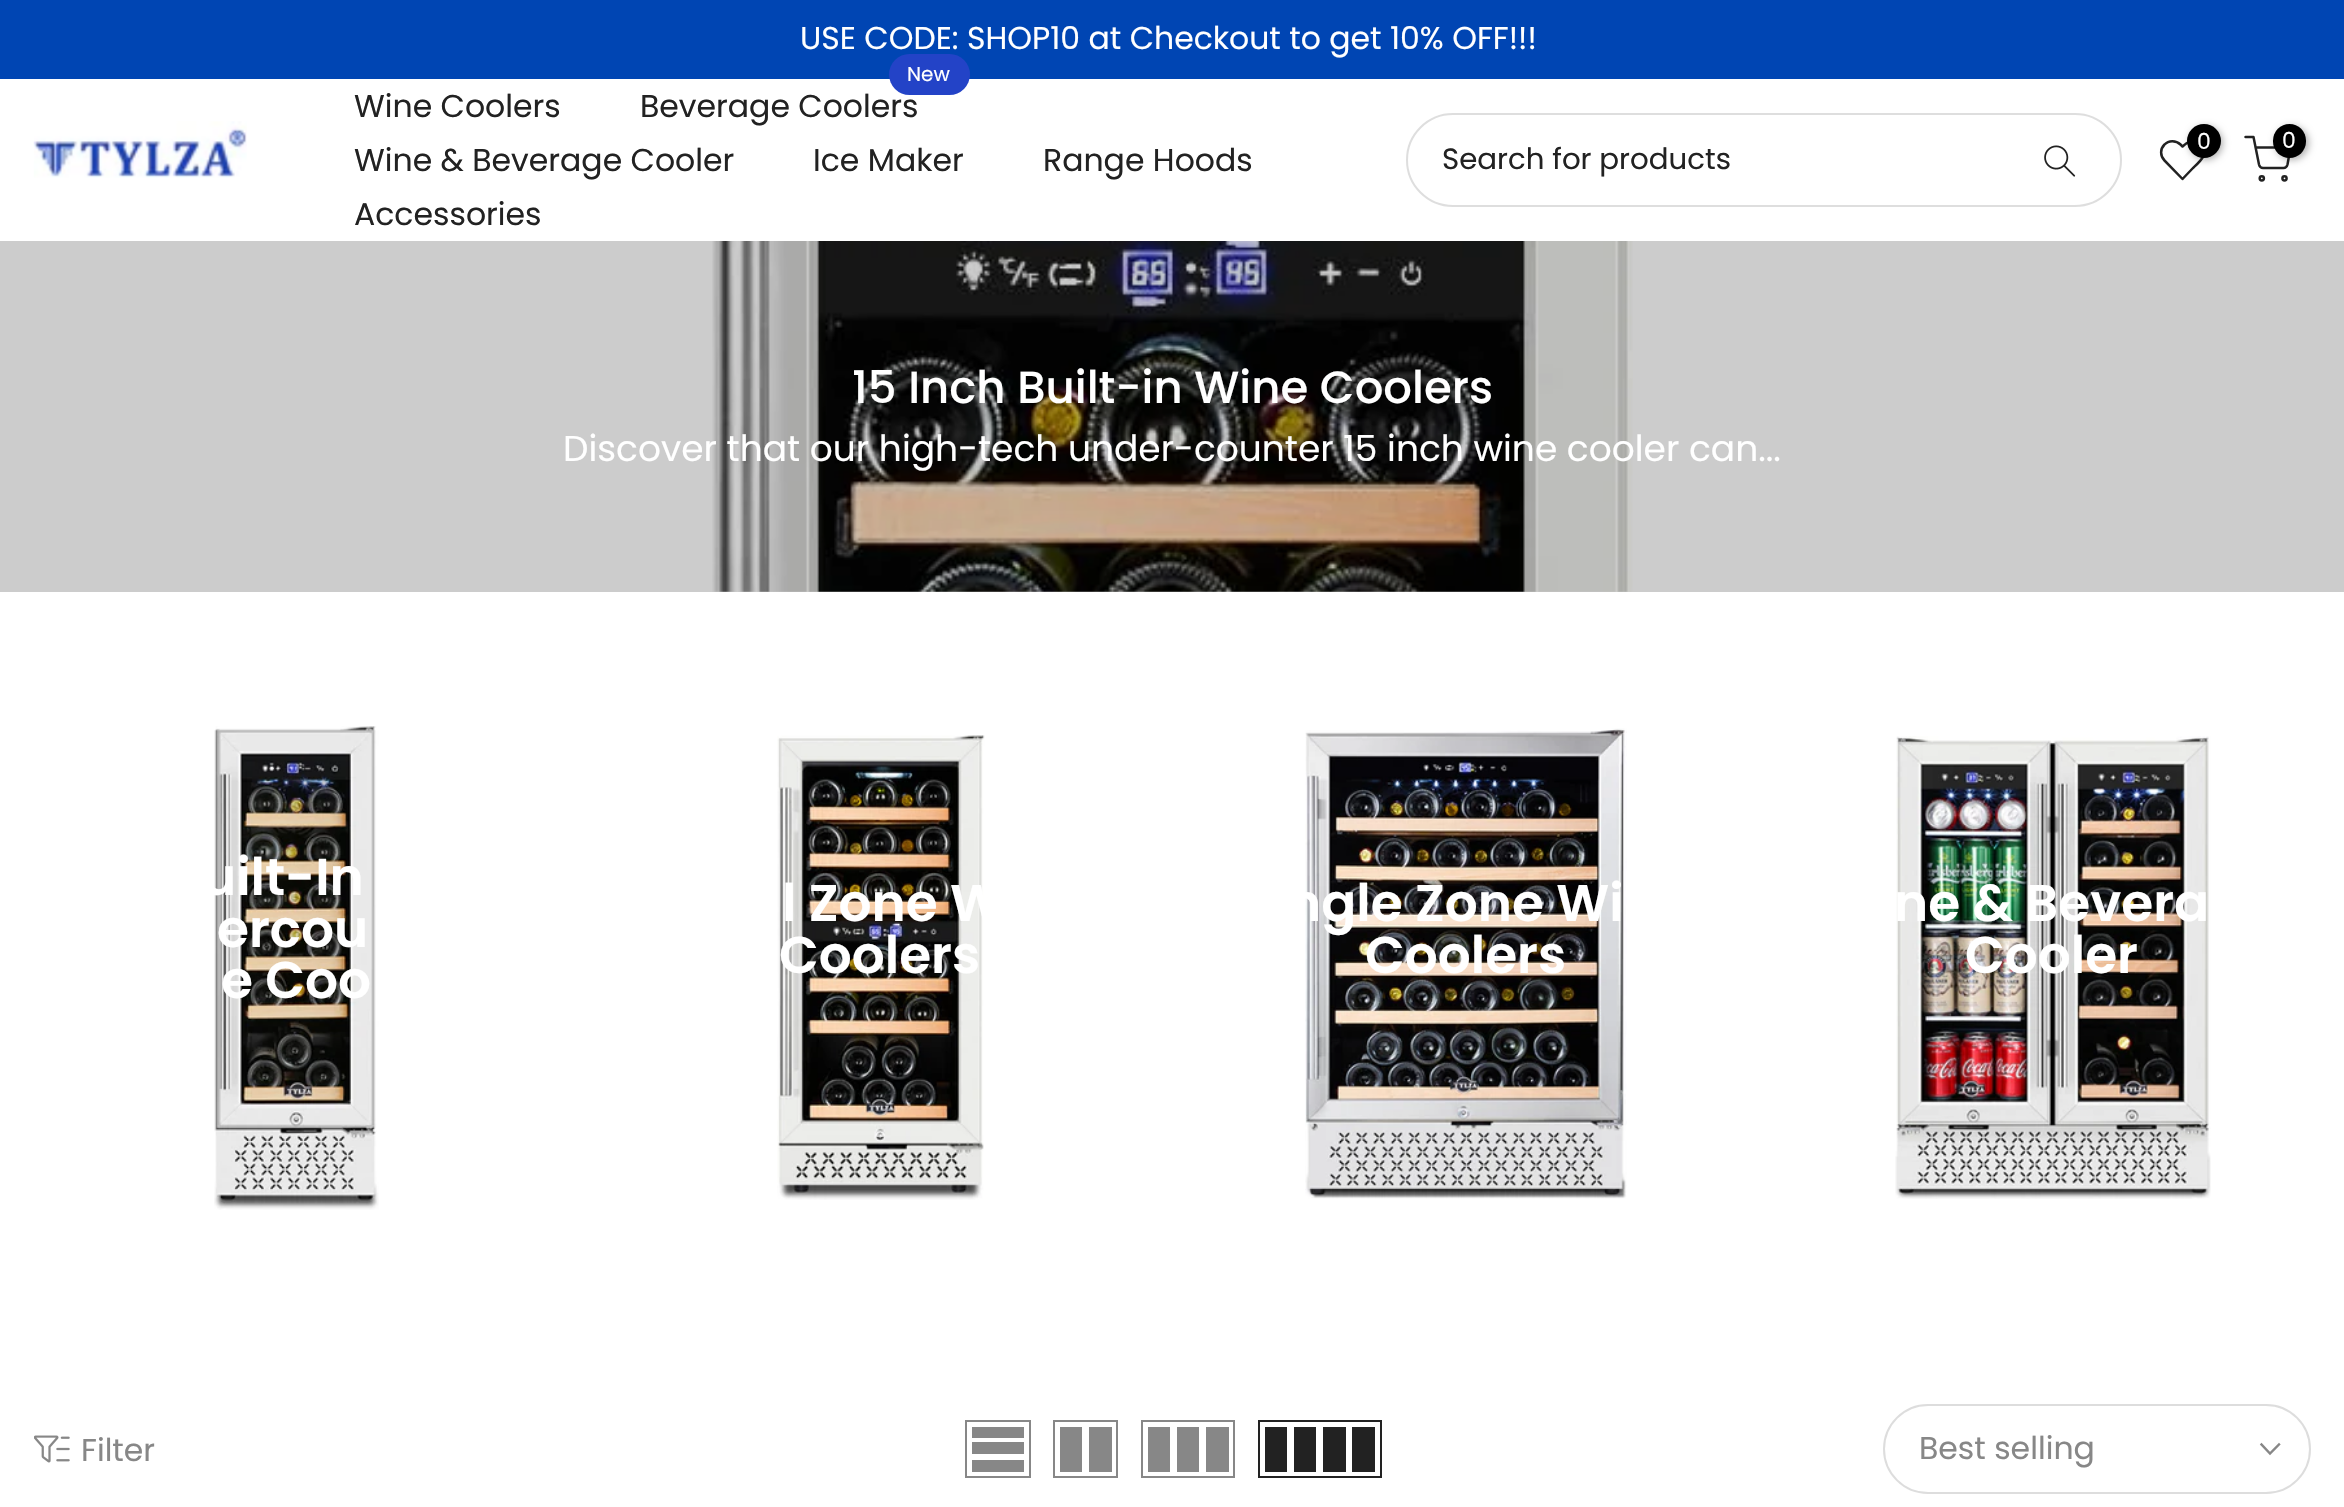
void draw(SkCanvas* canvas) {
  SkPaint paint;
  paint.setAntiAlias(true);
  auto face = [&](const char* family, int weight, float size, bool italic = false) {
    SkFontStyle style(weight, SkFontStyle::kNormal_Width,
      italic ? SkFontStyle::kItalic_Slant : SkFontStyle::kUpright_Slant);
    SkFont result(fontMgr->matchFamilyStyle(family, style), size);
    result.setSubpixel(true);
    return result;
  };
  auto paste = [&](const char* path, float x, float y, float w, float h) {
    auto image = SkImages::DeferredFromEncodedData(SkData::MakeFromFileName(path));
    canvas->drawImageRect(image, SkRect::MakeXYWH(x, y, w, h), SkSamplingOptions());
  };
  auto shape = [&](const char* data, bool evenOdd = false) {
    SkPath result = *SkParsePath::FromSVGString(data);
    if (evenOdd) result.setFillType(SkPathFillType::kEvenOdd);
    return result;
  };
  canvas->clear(0xffffffff);
  paint.setColor(0xffcccccc);
  canvas->drawRect(SkRect::MakeXYWH(0, 241, 2344, 351), paint);
  paint.setColor(0xff0045b3);
  canvas->drawRect(SkRect::MakeXYWH(0, 0, 2344, 79), paint);
  paste("img/1.png", 33, 121, 214, 57);
  paint.setStroke(true);
  paint.setStrokeWidth(2.5f);
  paint.setStrokeCap(SkPaint::kRound_Cap);
  paint.setStrokeJoin(SkPaint::kRound_Join);
  paint.setColor(0xff222222);
  canvas->drawPath(shape("M2200.5 144.5C2194.5 138.5 2187.5 141.5 2182.5 146.5L2180.5 144.5C2176 140 2168.5 140 2164.5 144.5C2160 149 2160 156 2164.5 160.5L2182.5 179L2193 168C2199.5 162 2210 153.5 2200.5 144.5Z"), paint);
  paint.setStroke(false);
  paint.setColor(0x4d000000);
  paint.setMaskFilter(SkMaskFilter::MakeBlur(kNormal_SkBlurStyle, 3.5f));
  canvas->drawRoundRect(SkRect::MakeXYWH(2189, 126, 34, 34), 17, 17, paint);
  paint.setMaskFilter(nullptr);
  paint.setColor(0xff000000);
  canvas->drawCircle(2204, 141, 17, paint);
  paint.setStroke(true);
  paint.setColor(0xff222222);
  canvas->drawPath(shape("M2245.5 137H2253.5L2259 164.5C2259.5 166.5 2261 168 2263 168H2283.5C2285.5 168 2287 166.5 2287.5 164.5L2290.5 147.5H2255.5"), paint);
  paint.setStroke(false);
  paint.setColor(0x4d000000);
  paint.setMaskFilter(SkMaskFilter::MakeBlur(kNormal_SkBlurStyle, 3.5f));
  canvas->drawRoundRect(SkRect::MakeXYWH(2275, 126, 34, 34), 17, 17, paint);
  paint.setMaskFilter(nullptr);
  paint.setColor(0xff000000);
  canvas->drawRoundRect(SkRect::MakeXYWH(2273, 124, 33, 34), 16.5f, 16.5f, paint);
  paint.setStroke(true);
  paint.setStrokeCap(SkPaint::kButt_Cap);
  paint.setStrokeJoin(SkPaint::kMiter_Join);
  paint.setColor(0xff222222);
  canvas->drawCircle(2261.8f, 178.3f, 2.1f, paint);
  canvas->drawCircle(2284.5f, 178.3f, 2.1f, paint);
  paint.setStrokeWidth(2);
  paint.setColor(0xffdedede);
  canvas->drawRoundRect(SkRect::MakeXYWH(1407, 114, 714, 92), 46, 46, paint);
  paste("img/2.png", 2044, 145, 32, 32);
  paste("img/3.png", 712, 241, 921, 351);
  paste("img/4.png", 214, 726, 165, 484);
  paste("img/5.png", 777, 735, 208, 465);
  paste("img/6.png", 1305, 728, 322, 471);
  paste("img/7.png", 1895, 736, 316, 463);
  paste("img/8.png", 34, 1435, 36, 28);
  paint.setColor(0xff878787);
  canvas->drawRect(SkRect::MakeXYWH(966, 1421, 64, 56), paint);
  paint.setStroke(false);
  {
    const struct { float x, y, w, h; SkColor color; } items[] = {
      {972, 1460, 52, 12, 0xff878787},
      {972, 1442, 52, 12, 0xff878787},
      {972, 1427, 52, 11, 0xff878787},
    };
    for (auto [x, y, w, h, color] : items) {
      paint.setColor(color);
      canvas->drawRect(SkRect::MakeXYWH(x, y, w, h), paint);
    }
  }
  paint.setStroke(true);
  canvas->drawRect(SkRect::MakeXYWH(1054, 1421, 63, 56), paint);
  paint.setStroke(false);
  canvas->drawRect(SkRect::MakeXYWH(1089, 1427, 23, 45), paint);
  canvas->drawRect(SkRect::MakeXYWH(1060, 1427, 22, 45), paint);
  paint.setStroke(true);
  canvas->drawRect(SkRect::MakeXYWH(1142, 1421, 92, 56), paint);
  paint.setStroke(false);
  {
    const struct { float x, y, w, h; SkColor color; } items[] = {
      {1206, 1427, 23, 45, 0xff878787},
      {1177, 1427, 22, 45, 0xff878787},
      {1148, 1427, 22, 45, 0xff878787},
    };
    for (auto [x, y, w, h, color] : items) {
      paint.setColor(color);
      canvas->drawRect(SkRect::MakeXYWH(x, y, w, h), paint);
    }
  }
  paint.setStroke(true);
  paint.setColor(0xff222222);
  canvas->drawRect(SkRect::MakeXYWH(1259, 1421, 122, 56), paint);
  paint.setStroke(false);
  {
    const struct { float x, y, w, h; SkColor color; } items[] = {
      {1352, 1427, 23, 45, 0xff222222},
      {1323, 1427, 23, 45, 0xff222222},
      {1294, 1427, 22, 45, 0xff222222},
      {1265, 1427, 22, 45, 0xff222222},
    };
    for (auto [x, y, w, h, color] : items) {
      paint.setColor(color);
      canvas->drawRect(SkRect::MakeXYWH(x, y, w, h), paint);
    }
  }
  paint.setStroke(true);
  paint.setColor(0xffdddddd);
  canvas->drawRoundRect(SkRect::MakeXYWH(1884, 1405, 426, 88), 44, 44, paint);
  paint.setStrokeWidth(2.4f);
  paint.setStrokeCap(SkPaint::kSquare_Cap);
  paint.setColor(0xff878787);
  canvas->drawPath(shape("M2279 1444.5L2270 1453.5L2261.5 1444.5"), paint);
  auto f0 = face("Poppins", 400, 31.5f);
  paint.setStroke(false);
  paint.setColor(0xffffffff);
  canvas->drawString("USE CODE: SHOP10 at Checkout to get 10% OFF!!!", 800, 49, f0, paint);
  paint.setColor(0xff222222);
  canvas->drawString("Wine Coolers", 354, 117, f0, paint);
  canvas->drawString("Beverage Coolers", 640, 117, f0, paint);
  paint.setColor(0xff2343c7);
  canvas->drawRoundRect(SkRect::MakeXYWH(889, 54, 81, 41), 20.5f, 20.5f, paint);
  auto f1 = face("Poppins", 400, 20);
  paint.setColor(0xffffffff);
  canvas->drawString("New", 907, 81, f1, paint);
  paint.setColor(0xff222222);
  {
    const struct { const char* s; float x, y; } items[] = {
      {"Wine & Beverage Cooler", 354, 171},
      {"Ice Maker", 813, 171},
      {"Range Hoods", 1043, 171},
      {"Accessories", 354, 225},
    };
    for (auto [s, x, y] : items) {
      canvas->drawString(s, x, y, f0, paint);
    }
  }
  auto f2 = face("Poppins", 400, 22);
  paint.setColor(0xffffffff);
  canvas->drawString("0", 2197, 149, f2, paint);
  canvas->drawString("0", 2282, 148, f2, paint);
  auto f3 = face("Poppins", 400, 29.25f);
  paint.setColor(0xff222222);
  canvas->drawString("Search for products", 1442, 169, f3, paint);
  auto f4 = face("Poppins", 500, 45);
  paint.setColor(0xffffffff);
  canvas->drawString("15 Inch Built-in Wine Coolers", 852, 403, f4, paint);
  auto f5 = face("Poppins", 400, 36);
  canvas->drawString("Discover that our high-tech under-counter 15 inch wine cooler can...", 563, 461, f5, paint);
  auto f6 = face("Poppins", 600, 51.75f);
  {
    const struct { const char* s; float x, y; } items[] = {
      {"uilt-In", 202, 895},
      {"ercou", 217, 947},
      {"e Coo", 221, 998},
      {"l Zone W", 782, 921},
      {"Coolers", 779, 973},
      {"ngle Zone Wi", 1287, 921},
      {"Coolers", 1365, 973},
      {"ne & Bevera", 1894, 921},
      {"Cooler", 1965, 973},
    };
    for (auto [s, x, y] : items) {
      canvas->drawString(s, x, y, f6, paint);
    }
  }
  paint.setColor(0xff878787);
  canvas->drawString("Filter", 81, 1461, f0, paint);
  canvas->drawString("Best selling", 1919, 1459, f0, paint);
}
